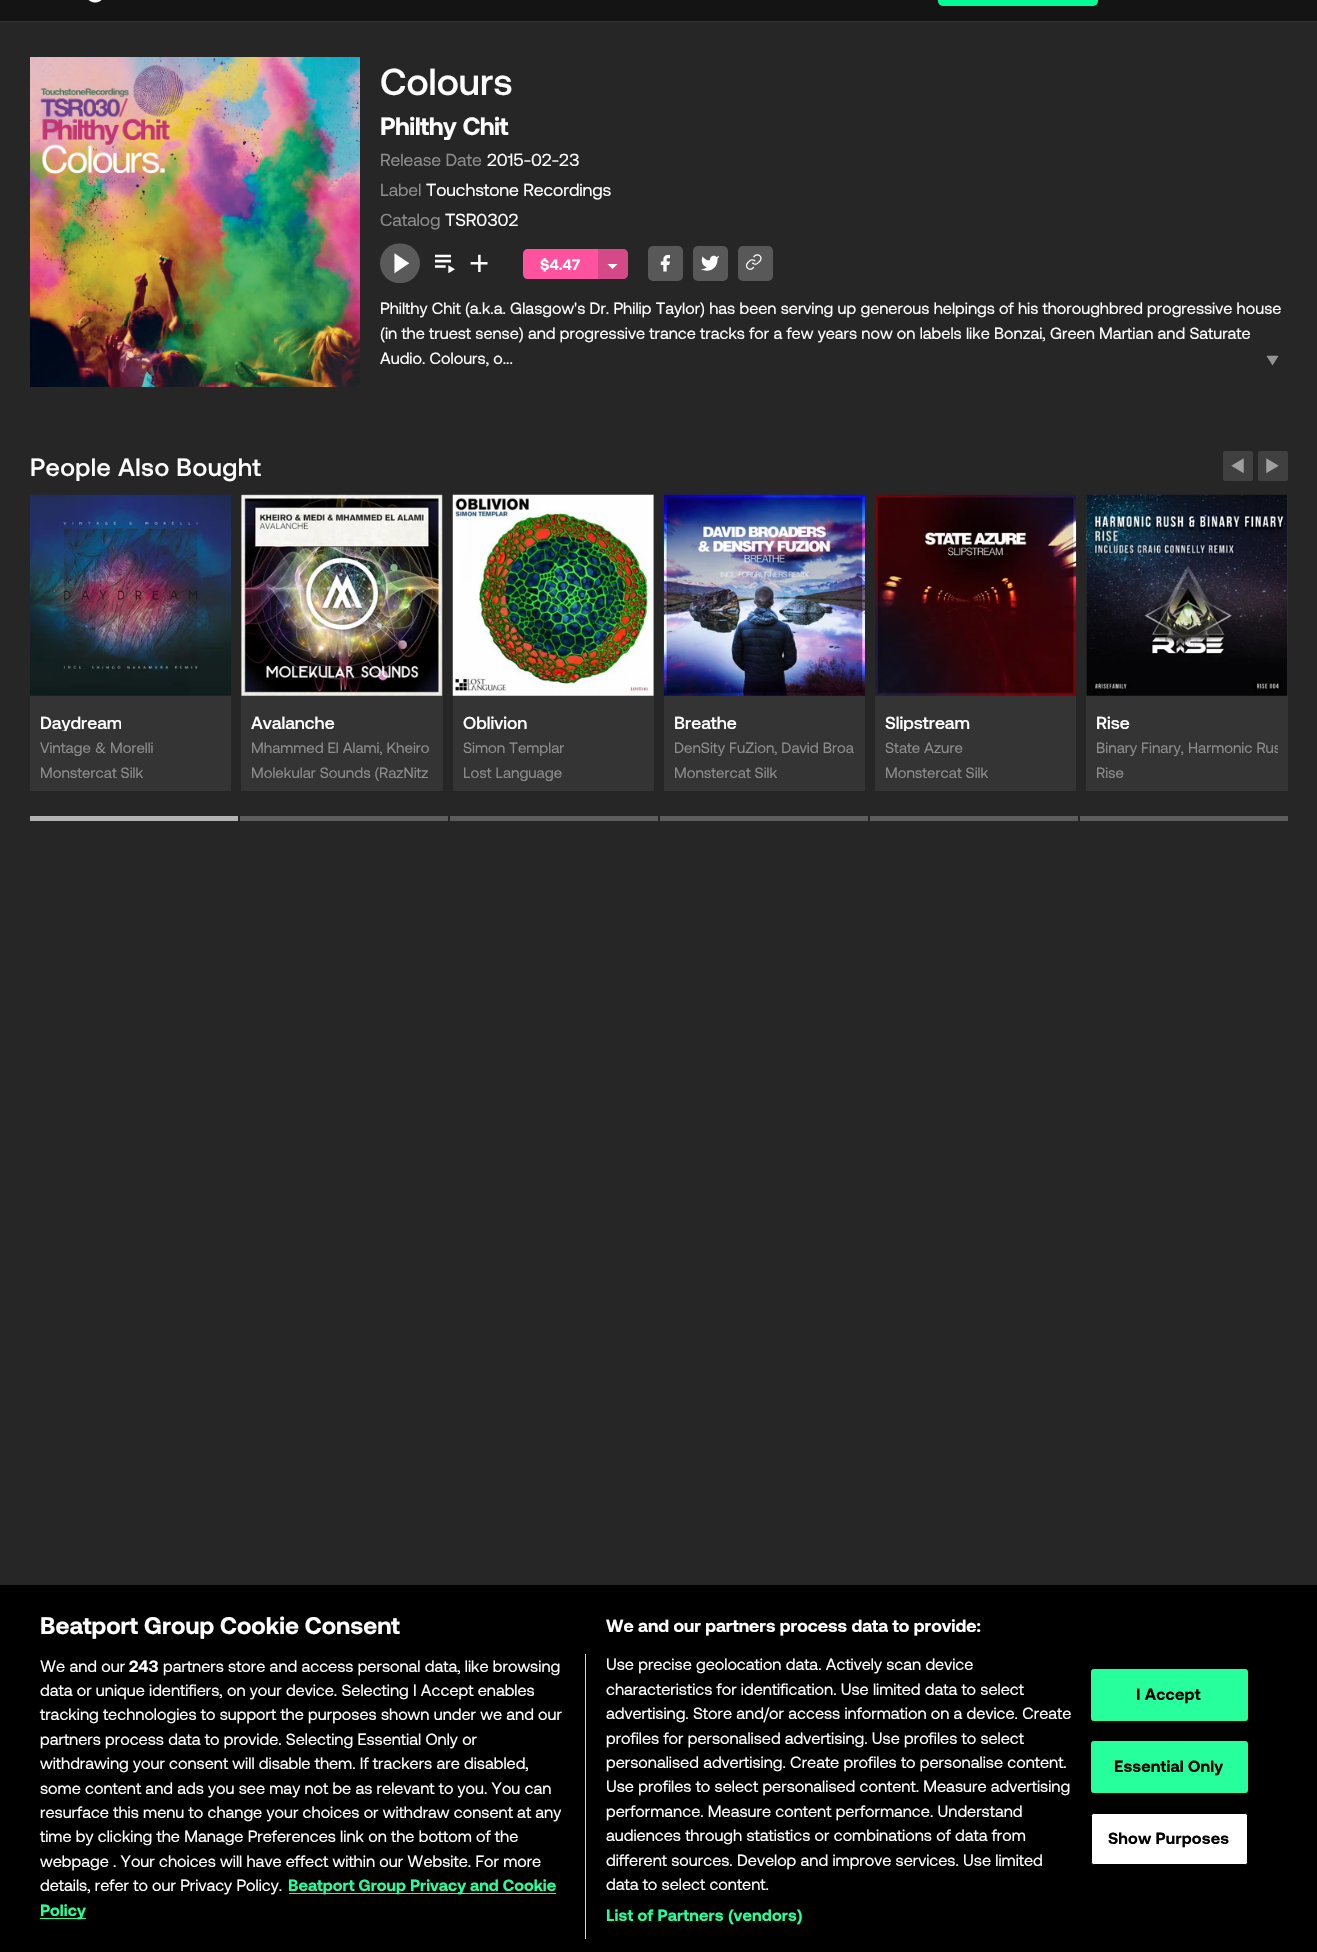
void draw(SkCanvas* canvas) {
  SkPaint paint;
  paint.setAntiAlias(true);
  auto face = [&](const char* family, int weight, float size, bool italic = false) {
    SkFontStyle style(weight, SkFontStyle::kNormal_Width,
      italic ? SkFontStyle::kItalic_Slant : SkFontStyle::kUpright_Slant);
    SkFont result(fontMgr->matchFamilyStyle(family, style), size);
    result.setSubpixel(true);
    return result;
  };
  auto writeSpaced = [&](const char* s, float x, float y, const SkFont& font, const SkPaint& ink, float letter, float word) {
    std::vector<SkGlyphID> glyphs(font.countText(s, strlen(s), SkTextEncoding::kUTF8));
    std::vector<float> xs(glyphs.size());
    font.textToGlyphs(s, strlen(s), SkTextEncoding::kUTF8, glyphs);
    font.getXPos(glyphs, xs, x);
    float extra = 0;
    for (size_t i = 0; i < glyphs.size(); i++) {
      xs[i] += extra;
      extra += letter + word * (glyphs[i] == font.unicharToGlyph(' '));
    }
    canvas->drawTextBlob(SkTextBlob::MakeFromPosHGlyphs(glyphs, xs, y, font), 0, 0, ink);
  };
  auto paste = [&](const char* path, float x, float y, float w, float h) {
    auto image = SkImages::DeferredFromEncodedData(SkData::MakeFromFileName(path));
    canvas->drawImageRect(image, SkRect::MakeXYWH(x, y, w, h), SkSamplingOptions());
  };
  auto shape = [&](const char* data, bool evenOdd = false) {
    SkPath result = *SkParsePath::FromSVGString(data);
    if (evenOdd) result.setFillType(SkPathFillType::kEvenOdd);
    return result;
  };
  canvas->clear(0xff262626);
  paint.setColor(0xff141414);
  canvas->drawRect(SkRect::MakeXYWH(0, 0, 1317, 21), paint);
  paint.setColor(0xff333333);
  canvas->drawRect(SkRect::MakeXYWH(0, 21, 1317, 1), paint);
  paste("img/1.png", 88, 0, 14, 3);
  paint.setColor(0xff01ff95);
  canvas->drawRoundRect(SkRect::MakeXYWH(938, -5, 160, 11), 5, 5, paint);
  paste("img/2.png", 30, 57, 330, 330);
  paste("img/3.png", 380, 243, 40, 40);
  paste("img/4.png", 435, 254, 20, 19);
  paste("img/5.png", 470, 254, 18, 18);
  paint.setColor(0xffff53a0);
  canvas->drawPath(shape("M528 249H598V279H528C525 279 523 277 523 274V254C523 251 525 249 528 249Z"), paint);
  paint.setColor(0xffd64988);
  canvas->drawPath(shape("M598 249H623C626 249 628 251 628 254V274C628 277 626 279 623 279H598Z"), paint);
  paint.setColor(0xffffffff);
  canvas->drawPath(shape("M607.5 264H617.5L612.5 269Z"), paint);
  paint.setColor(0xff585858);
  canvas->drawRoundRect(SkRect::MakeXYWH(648, 246, 35, 35), 5, 5, paint);
  paste("img/6.png", 660, 255, 10, 17);
  canvas->drawRoundRect(SkRect::MakeXYWH(693, 246, 35, 35), 5, 5, paint);
  paste("img/7.png", 701, 255, 18, 16);
  canvas->drawRoundRect(SkRect::MakeXYWH(738, 246, 35, 35), 5, 5, paint);
  paste("img/8.png", 745, 254, 17, 16);
  paste("img/9.png", 1266, 355, 13, 11);
  paint.setColor(0xff404040);
  canvas->drawRoundRect(SkRect::MakeXYWH(1223, 451, 30, 30), 2.5f, 2.5f, paint);
  paste("img/10.png", 1231, 458, 13, 16);
  canvas->drawRoundRect(SkRect::MakeXYWH(1258, 451, 30, 30), 2.5f, 2.5f, paint);
  paste("img/11.png", 1266, 458, 13, 16);
  paint.setColor(0xff343434);
  canvas->drawRect(SkRect::MakeXYWH(30, 695, 201, 96), paint);
  paste("img/12.png", 30, 494, 202, 202);
  canvas->drawRect(SkRect::MakeXYWH(241, 495, 202, 296), paint);
  paste("img/13.png", 241, 494, 202, 202);
  canvas->drawRect(SkRect::MakeXYWH(453, 495, 201, 296), paint);
  paste("img/14.png", 452, 494, 202, 202);
  canvas->drawRect(SkRect::MakeXYWH(664, 695, 201, 96), paint);
  paste("img/15.png", 663, 494, 202, 202);
  canvas->drawRect(SkRect::MakeXYWH(875, 695, 201, 96), paint);
  paste("img/16.png", 875, 494, 202, 202);
  canvas->drawRect(SkRect::MakeXYWH(1086, 495, 202, 296), paint);
  paste("img/17.png", 1086, 494, 202, 202);
  {
    const struct { float x, y, w, h; SkColor color; } items[] = {
      {30, 816, 208, 5, 0xffb3b3b3},
      {240, 816, 208, 5, 0xff5c5c5c},
      {450, 816, 208, 5, 0xff5c5c5c},
      {660, 816, 208, 5, 0xff5c5c5c},
      {870, 816, 208, 5, 0xff5c5c5c},
      {1080, 816, 208, 5, 0xff5c5c5c},
      {0, 1585, 1317, 367, 0xff000000},
      {585, 1654, 1, 285, 0xffd8d8d8},
      {289, 1893, 267, 1, 0xff27ff9c},
      {40, 1918, 46, 1, 0xff27ff9c},
    };
    for (auto [x, y, w, h, color] : items) {
      paint.setColor(color);
      canvas->drawRect(SkRect::MakeXYWH(x, y, w, h), paint);
    }
  }
  canvas->drawRoundRect(SkRect::MakeXYWH(1091.5f, 1669.5f, 156, 51), 2, 2, paint);
  paint.setStroke(true);
  paint.setStrokeWidth(1);
  canvas->drawRoundRect(SkRect::MakeXYWH(1091.5f, 1669.5f, 156, 51), 2, 2, paint);
  paint.setStroke(false);
  canvas->drawRoundRect(SkRect::MakeXYWH(1091.5f, 1741.5f, 156, 51), 2, 2, paint);
  paint.setStroke(true);
  canvas->drawRoundRect(SkRect::MakeXYWH(1091.5f, 1741.5f, 156, 51), 2, 2, paint);
  paint.setStroke(false);
  paint.setColor(0xffffffff);
  canvas->drawRoundRect(SkRect::MakeXYWH(1091.5f, 1813.5f, 156, 51), 2, 2, paint);
  paint.setStroke(true);
  paint.setColor(0xff000000);
  canvas->drawRoundRect(SkRect::MakeXYWH(1091.5f, 1813.5f, 156, 51), 2, 2, paint);
  auto f0 = face("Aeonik", 500, 37.5f);
  paint.setStroke(false);
  paint.setColor(0xffffffff);
  canvas->drawString("Colours", 380, 95, f0, paint);
  auto f1 = face("Aeonik", 700, 25);
  writeSpaced("Philthy Chit", 380, 135, f1, paint, -0.5f, 1);
  auto f2 = face("Aeonik", 400, 17.5f);
  paint.setColor(0xff8c8c8c);
  writeSpaced("Release Date", 380, 166, f2, paint, -0.1f, 0);
  paint.setColor(0xffffffff);
  writeSpaced("2015-02-23", 487, 166, f2, paint, -0.1f, 0);
  paint.setColor(0xff8c8c8c);
  writeSpaced("Label", 380, 196, f2, paint, -0.1f, 0);
  paint.setColor(0xffffffff);
  writeSpaced("Touchstone Recordings", 426, 196, f2, paint, -0.1f, 0);
  paint.setColor(0xff8c8c8c);
  writeSpaced("Catalog", 380, 226, f2, paint, -0.1f, 0);
  paint.setColor(0xffffffff);
  writeSpaced("TSR0302", 445, 226, f2, paint, -0.1f, 0);
  auto f3 = face("Aeonik", 700, 15);
  canvas->drawString("$4.47", 540, 270, f3, paint);
  auto f4 = face("Aeonik", 400, 16.25f);
  {
    const struct { const char* s; float x, y; } items[] = {
      {"Philthy Chit (a.k.a. Glasgow's Dr. Philip Taylor) has been serving up generous helpings of his thoroughbred progressive house", 380, 314},
      {"(in the truest sense) and progressive trance tracks for a few years now on labels like Bonzai, Green Martian and Saturate", 380, 339},
      {"Audio. Colours, o...", 380, 364},
    };
    for (auto [s, x, y] : items) {
      canvas->drawString(s, x, y, f4, paint);
    }
  }
  auto f5 = face("Aeonik", 500, 25);
  writeSpaced("People Also Bought", 30, 476, f5, paint, 0.4f, 0);
  canvas->save();
  canvas->clipRect(SkRect::MakeXYWH(40, 706, 81, 25));
  auto f6 = face("Aeonik", 500, 17.5f);
  canvas->drawString("Daydream", 40, 729, f6, paint);
  canvas->restore();
  auto f7 = face("Aeonik", 400, 15);
  paint.setColor(0xff8c8c8c);
  canvas->drawString("Vintage & Morelli", 40, 753, f7, paint);
  canvas->drawString("Monstercat Silk", 40, 778, f7, paint);
  paint.setColor(0xffffffff);
  canvas->drawString("Avalanche", 251, 729, f6, paint);
  paint.setColor(0xff8c8c8c);
  canvas->drawString("Mhammed El Alami, Kheiro", 251, 753, f7, paint);
  canvas->drawString("Molekular Sounds (RazNitz", 251, 778, f7, paint);
  paint.setColor(0xffffffff);
  canvas->drawString("Oblivion", 463, 729, f6, paint);
  paint.setColor(0xff8c8c8c);
  canvas->drawString("Simon Templar", 463, 753, f7, paint);
  canvas->drawString("Lost Language", 463, 778, f7, paint);
  paint.setColor(0xffffffff);
  canvas->drawString("Breathe", 674, 729, f6, paint);
  paint.setColor(0xff8c8c8c);
  canvas->drawString("DenSity FuZion, David Broa", 674, 753, f7, paint);
  canvas->drawString("Monstercat Silk", 674, 778, f7, paint);
  canvas->save();
  canvas->clipRect(SkRect::MakeXYWH(885, 706, 85, 25));
  paint.setColor(0xffffffff);
  canvas->drawString("Slipstream", 885, 729, f6, paint);
  canvas->restore();
  paint.setColor(0xff8c8c8c);
  canvas->drawString("State Azure", 885, 753, f7, paint);
  canvas->drawString("Monstercat Silk", 885, 778, f7, paint);
  paint.setColor(0xffffffff);
  canvas->drawString("Rise", 1096, 729, f6, paint);
  paint.setColor(0xff8c8c8c);
  canvas->drawString("Binary Finary,", 1096, 753, f7, paint);
  canvas->save();
  canvas->clipRect(SkRect::MakeXYWH(1096, 736, 182, 20));
  canvas->drawString("Harmonic Rus", 1188, 753, f7, paint);
  canvas->restore();
  canvas->drawString("Rise", 1096, 778, f7, paint);
  auto f8 = face("Aeonik", 700, 24);
  paint.setColor(0xffffffff);
  canvas->drawString("Beatport Group Cookie Consent", 40, 1634, f8, paint);
  auto f9 = face("Aeonik", 700, 17.6f);
  canvas->drawString("We and our partners process data to provide:", 606, 1632, f9, paint);
  {
    const struct { const char* s; float x, y; } items[] = {
      {"Use precise geolocation data. Actively scan device", 606, 1670},
      {"characteristics for identification. Use limited data to select", 606, 1695},
      {"advertising. Store and/or access information on a device. Create", 606, 1719},
      {"profiles for personalised advertising. Use profiles to select", 606, 1744},
      {"personalised advertising. Create profiles to personalise content.", 606, 1768},
      {"Use profiles to select personalised content. Measure advertising", 606, 1792},
      {"performance. Measure content performance. Understand", 606, 1817},
      {"audiences through statistics or combinations of data from", 606, 1841},
      {"different sources. Develop and improve services. Use limited", 606, 1866},
      {"data to select content.", 606, 1890},
    };
    for (auto [s, x, y] : items) {
      canvas->drawString(s, x, y, f4, paint);
    }
  }
  auto f10 = face("Aeonik", 700, 16.25f);
  paint.setColor(0xff27ff9c);
  writeSpaced("List of Partners (vendors)", 606, 1921, f10, paint, 0.15f, 0);
  paint.setColor(0xffffffff);
  canvas->drawString("We and our", 40, 1672, f4, paint);
  canvas->drawString("243", 129, 1672, f10, paint);
  {
    const struct { const char* s; float x, y; } items[] = {
      {"partners store and access personal data, like browsing", 163, 1672},
      {"data or unique identifiers, on your device. Selecting I Accept enables", 40, 1696},
      {"tracking technologies to support the purposes shown under we and our", 40, 1720},
      {"partners process data to provide. Selecting Essential Only or", 40, 1745},
      {"withdrawing your consent will disable them. If trackers are disabled,", 40, 1769},
      {"some content and ads you see may not be as relevant to you. You can", 40, 1794},
      {"resurface this menu to change your choices or withdraw consent at any", 40, 1818},
      {"time by clicking the Manage Preferences link on the bottom of the", 40, 1842},
      {"webpage . Your choices will have effect within our Website. For more", 40, 1867},
      {"details, refer to our Privacy Policy.", 40, 1891},
    };
    for (auto [s, x, y] : items) {
      canvas->drawString(s, x, y, f4, paint);
    }
  }
  paint.setColor(0xff27ff9c);
  canvas->drawString("Beatport Group Privacy and Cookie", 288, 1891, f10, paint);
  canvas->drawString("Policy", 40, 1916, f10, paint);
  paint.setColor(0xff000000);
  {
    const struct { const char* s; float x, y; } items[] = {
      {"I Accept", 1136, 1700},
      {"Essential Only", 1114, 1772},
      {"Show Purposes", 1108, 1844},
    };
    for (auto [s, x, y] : items) {
      writeSpaced(s, x, y, f10, paint, 0.15f, 0);
    }
  }
}
